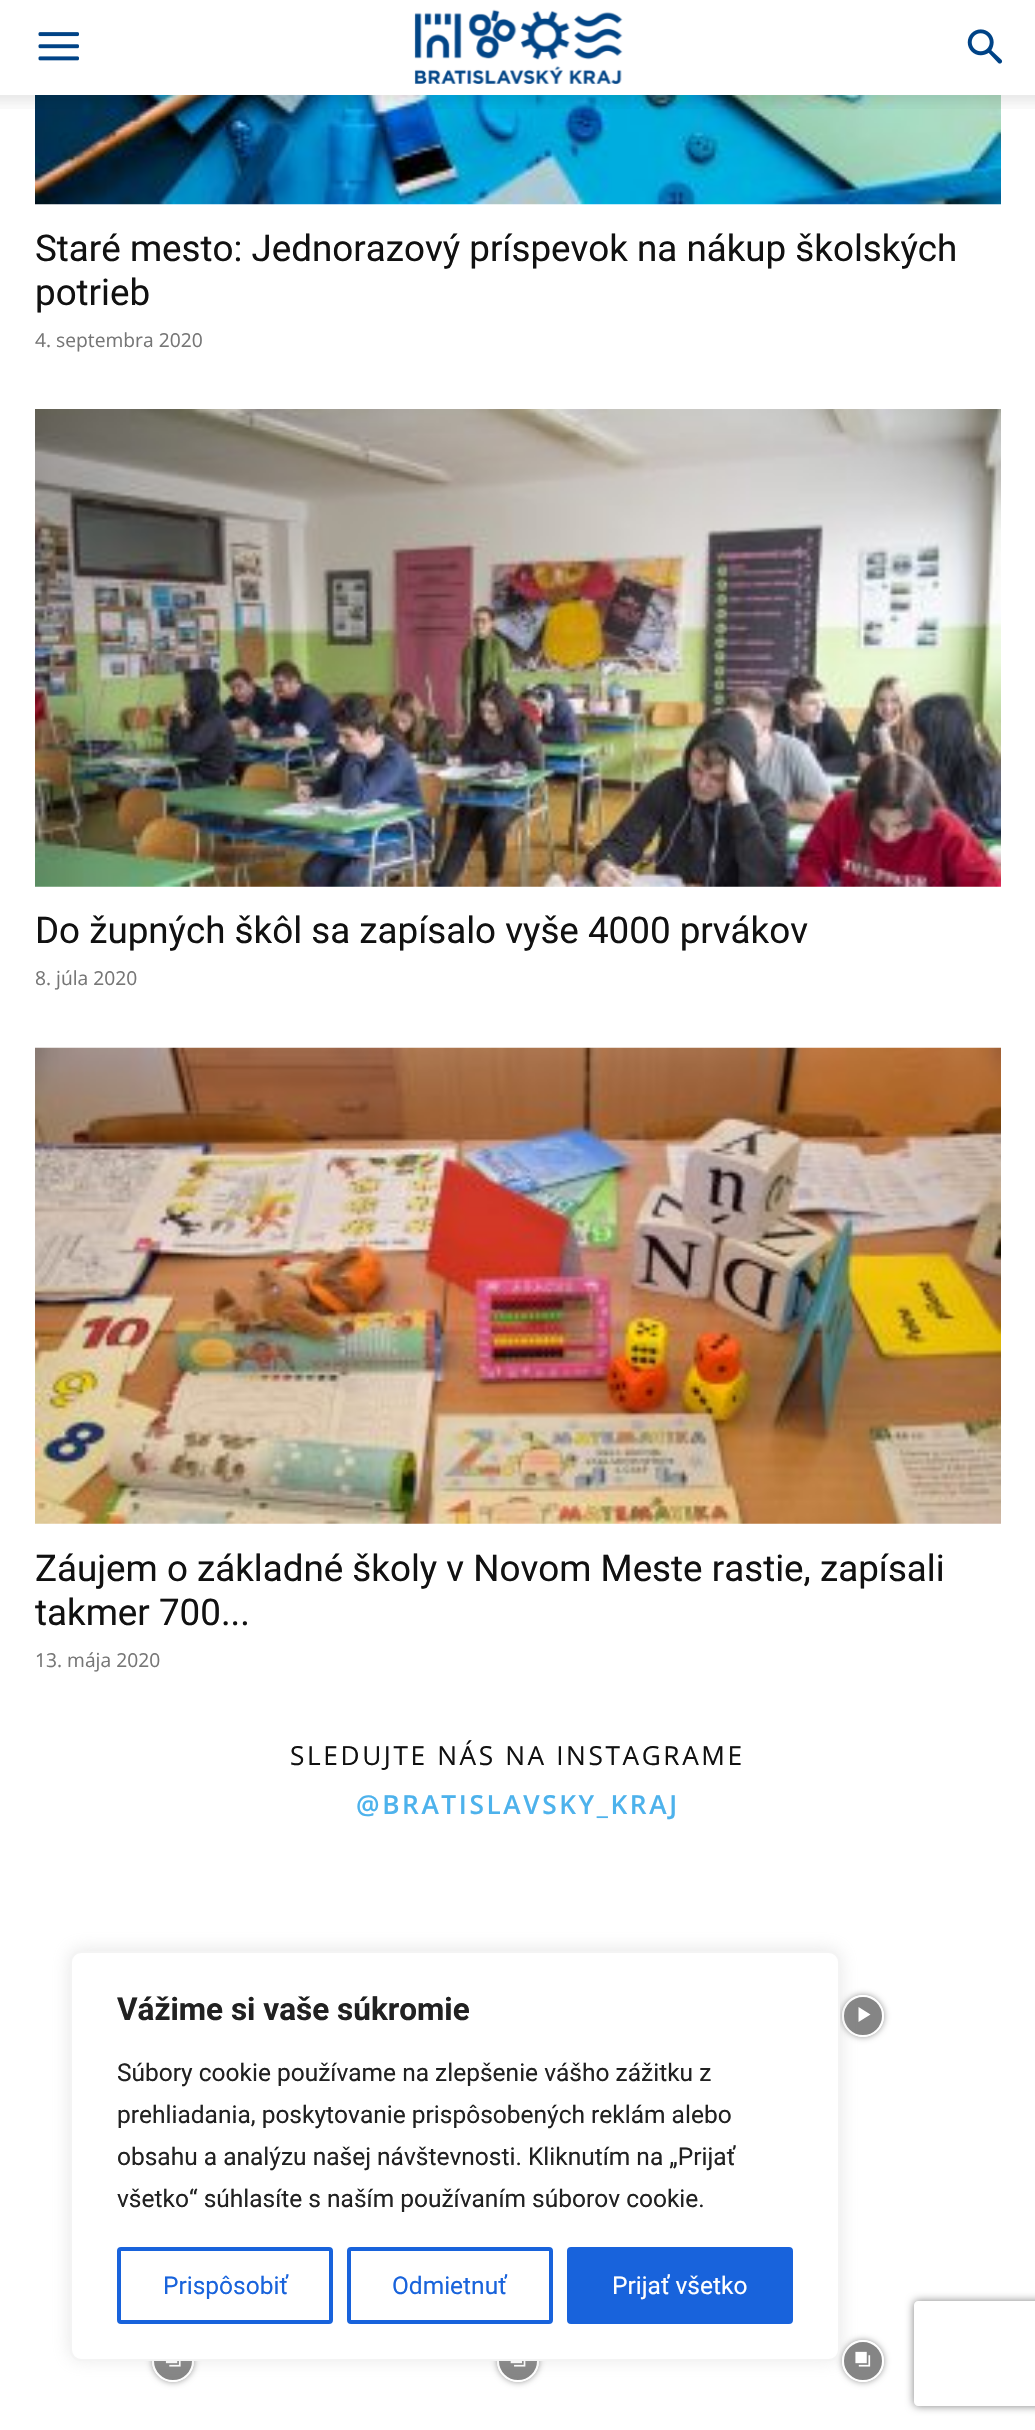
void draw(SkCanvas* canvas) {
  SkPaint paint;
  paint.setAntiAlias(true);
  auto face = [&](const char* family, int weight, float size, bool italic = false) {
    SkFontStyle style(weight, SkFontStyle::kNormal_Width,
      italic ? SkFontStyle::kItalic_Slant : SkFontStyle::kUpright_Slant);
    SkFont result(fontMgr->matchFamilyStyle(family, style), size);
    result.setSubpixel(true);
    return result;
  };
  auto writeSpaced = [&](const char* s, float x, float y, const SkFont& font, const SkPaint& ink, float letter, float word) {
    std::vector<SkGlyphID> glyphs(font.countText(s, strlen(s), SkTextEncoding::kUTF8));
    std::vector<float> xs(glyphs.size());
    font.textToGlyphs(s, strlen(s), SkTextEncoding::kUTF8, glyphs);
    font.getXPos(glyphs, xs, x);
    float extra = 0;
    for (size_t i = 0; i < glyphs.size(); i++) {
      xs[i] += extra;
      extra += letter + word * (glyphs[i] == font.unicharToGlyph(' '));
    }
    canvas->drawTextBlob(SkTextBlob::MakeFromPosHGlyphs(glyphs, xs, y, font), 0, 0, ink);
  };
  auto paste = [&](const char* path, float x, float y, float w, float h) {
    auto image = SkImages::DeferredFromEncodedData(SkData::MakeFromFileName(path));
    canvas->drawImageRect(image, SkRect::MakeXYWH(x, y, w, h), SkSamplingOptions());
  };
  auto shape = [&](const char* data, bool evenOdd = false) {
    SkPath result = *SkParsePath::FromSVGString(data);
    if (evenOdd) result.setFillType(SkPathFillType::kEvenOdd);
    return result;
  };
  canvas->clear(0xffffffff);
  paste("img/1.png", 38, 32, 41, 29);
  paste("img/2.png", 414, 9, 209, 75);
  paste("img/3.png", 967, 29, 36, 35);
  paste("img/5.png", 35, 95, 966, 110);
  paste("img/4.png", 0, 95, 1035, 14);
  paste("img/6.png", 35, 409, 966, 478);
  paste("img/7.png", 35, 1047, 966, 477);
  canvas->save();
  canvas->clipPath(shape("M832 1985H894V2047H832ZM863 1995C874.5 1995 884 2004.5 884 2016C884 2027.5 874.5 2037 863 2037C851.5 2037 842 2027.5 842 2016C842 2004.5 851.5 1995 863 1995Z", true), true);
  paint.setColor(0x66000000);
  paint.setMaskFilter(SkMaskFilter::MakeBlur(kNormal_SkBlurStyle, 3));
  canvas->drawRoundRect(SkRect::MakeXYWH(842, 1995, 42, 42), 21, 21, paint);
  paint.setMaskFilter(nullptr);
  canvas->restore();
  paint.setColor(0x7a000000);
  canvas->drawCircle(863, 2016, 20, paint);
  paint.setStroke(true);
  paint.setStrokeWidth(2);
  paint.setColor(0xffffffff);
  canvas->drawCircle(863, 2016, 20, paint);
  paint.setStroke(false);
  canvas->drawPath(shape("M858.5 2007V2022L870.5 2014.5Z"), paint);
  canvas->save();
  canvas->clipPath(shape("M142 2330H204V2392H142ZM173 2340C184.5 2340 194 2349.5 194 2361C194 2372.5 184.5 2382 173 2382C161.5 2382 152 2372.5 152 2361C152 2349.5 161.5 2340 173 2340Z", true), true);
  paint.setColor(0x66000000);
  paint.setMaskFilter(SkMaskFilter::MakeBlur(kNormal_SkBlurStyle, 3));
  canvas->drawRoundRect(SkRect::MakeXYWH(152, 2340, 42, 42), 21, 21, paint);
  paint.setMaskFilter(nullptr);
  canvas->restore();
  paint.setColor(0x7a000000);
  canvas->drawCircle(173, 2361, 20, paint);
  paint.setStroke(true);
  paint.setColor(0xffffffff);
  canvas->drawCircle(173, 2361, 20, paint);
  paste("img/8.png", 165, 2361, 16, 6);
  canvas->save();
  canvas->clipPath(shape("M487 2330H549V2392H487ZM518 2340C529.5 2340 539 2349.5 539 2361C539 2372.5 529.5 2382 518 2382C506.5 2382 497 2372.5 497 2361C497 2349.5 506.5 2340 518 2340Z", true), true);
  paint.setStroke(false);
  paint.setColor(0x66000000);
  paint.setMaskFilter(SkMaskFilter::MakeBlur(kNormal_SkBlurStyle, 3));
  canvas->drawRoundRect(SkRect::MakeXYWH(497, 2340, 42, 42), 21, 21, paint);
  paint.setMaskFilter(nullptr);
  canvas->restore();
  paint.setColor(0x7a000000);
  canvas->drawCircle(518, 2361, 20, paint);
  paint.setStroke(true);
  paint.setColor(0xffffffff);
  canvas->drawCircle(518, 2361, 20, paint);
  paste("img/9.png", 510, 2361, 16, 6);
  canvas->save();
  canvas->clipPath(shape("M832 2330H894V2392H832ZM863 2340C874.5 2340 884 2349.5 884 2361C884 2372.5 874.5 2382 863 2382C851.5 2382 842 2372.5 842 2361C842 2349.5 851.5 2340 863 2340Z", true), true);
  paint.setStroke(false);
  paint.setColor(0x66000000);
  paint.setMaskFilter(SkMaskFilter::MakeBlur(kNormal_SkBlurStyle, 3));
  canvas->drawRoundRect(SkRect::MakeXYWH(842, 2340, 42, 42), 21, 21, paint);
  paint.setMaskFilter(nullptr);
  canvas->restore();
  paint.setColor(0x7a000000);
  canvas->drawCircle(863, 2361, 20, paint);
  paint.setStroke(true);
  paint.setColor(0xffffffff);
  canvas->drawCircle(863, 2361, 20, paint);
  paste("img/10.png", 855, 2351, 16, 16);
  paint.setStroke(false);
  paint.setColor(0x4dacabab);
  paint.setMaskFilter(SkMaskFilter::MakeBlur(kNormal_SkBlurStyle, 9));
  canvas->drawRoundRect(SkRect::MakeXYWH(70, 1950, 770, 409), 11, 11, paint);
  paint.setMaskFilter(nullptr);
  paint.setColor(0xffffffff);
  canvas->drawRoundRect(SkRect::MakeXYWH(71, 1952, 768, 408), 10, 10, paint);
  paint.setStroke(true);
  paint.setColor(0xfff4f4f4);
  canvas->drawRoundRect(SkRect::MakeXYWH(71, 1952, 768, 408), 10, 10, paint);
  paint.setStrokeWidth(4);
  paint.setColor(0xff1863dc);
  canvas->drawRoundRect(SkRect::MakeXYWH(119, 2249, 212, 73), 2, 2, paint);
  canvas->drawRoundRect(SkRect::MakeXYWH(349, 2249, 202, 73), 2, 2, paint);
  paint.setStroke(false);
  canvas->drawRoundRect(SkRect::MakeXYWH(569, 2249, 222, 73), 2, 2, paint);
  paint.setStroke(true);
  canvas->drawRoundRect(SkRect::MakeXYWH(569, 2249, 222, 73), 2, 2, paint);
  canvas->save();
  canvas->clipPath(shape("M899 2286H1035V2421H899ZM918 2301H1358C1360 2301 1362 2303 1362 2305V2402C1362 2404 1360 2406 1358 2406H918C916 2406 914 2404 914 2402V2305C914 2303 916 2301 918 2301Z", true), true);
  paint.setStroke(false);
  paint.setColor(0xff808080);
  paint.setMaskFilter(SkMaskFilter::MakeBlur(kNormal_SkBlurStyle, 4.5f));
  canvas->drawRoundRect(SkRect::MakeXYWH(914, 2301, 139, 105), 4, 4, paint);
  paint.setMaskFilter(nullptr);
  canvas->restore();
  auto f0 = face("Roboto", 400, 36.75f);
  paint.setColor(0xff111111);
  canvas->drawString("Staré mesto: Jednorazový príspevok na nákup školských", 35, 261, f0, paint);
  canvas->drawString("potrieb", 35, 305, f0, paint);
  auto f1 = face("Open Sans", 400, 19.25f);
  paint.setColor(0xff767676);
  canvas->drawString("4. septembra 2020", 35, 347, f1, paint);
  paint.setColor(0xff111111);
  canvas->drawString("Do župných škôl sa zapísalo vyše 4000 prvákov", 35, 943, f0, paint);
  paint.setColor(0xff767676);
  canvas->drawString("8. júla 2020", 35, 985, f1, paint);
  paint.setColor(0xff111111);
  canvas->drawString("Záujem o základné školy v Novom Meste rastie, zapísali", 35, 1581, f0, paint);
  canvas->drawString("takmer 700...", 35, 1625, f0, paint);
  paint.setColor(0xff767676);
  canvas->drawString("13. mája 2020", 35, 1667, f1, paint);
  auto f2 = face("Open Sans", 400, 26.25f);
  paint.setColor(0xff111111);
  writeSpaced("SLEDUJTE NÁS NA INSTAGRAME", 290, 1765, f2, paint, 2.6f, 0);
  auto f3 = face("Open Sans", 600, 26.25f);
  paint.setColor(0xff4db2ec);
  writeSpaced("@BRATISLAVSKY_KRAJ", 356, 1814, f3, paint, 2.6f, 0);
  auto f4 = face("Roboto", 700, 31.5f);
  paint.setColor(0xff212121);
  canvas->drawString("Vážime si vaše súkromie", 117, 2020, f4, paint);
  auto f5 = face("Roboto", 400, 24.5f);
  {
    const struct { const char* s; float x, y; } items[] = {
      {"Súbory cookie používame na zlepšenie vášho zážitku z", 117, 2081},
      {"prehliadania, poskytovanie prispôsobených reklám alebo", 117, 2123},
      {"obsahu a analýzu našej návštevnosti. Kliknutím na „Prijať", 117, 2165},
      {"všetko“ súhlasíte s naším používaním súborov cookie.", 117, 2207},
    };
    for (auto [s, x, y] : items) {
      canvas->drawString(s, x, y, f5, paint);
    }
  }
  paint.setColor(0xff1863dc);
  canvas->drawString("Prispôsobiť", 163, 2294, f5, paint);
  canvas->drawString("Odmietnuť", 392, 2294, f5, paint);
  paint.setColor(0xffffffff);
  canvas->drawString("Prijať všetko", 612, 2294, f5, paint);
}
